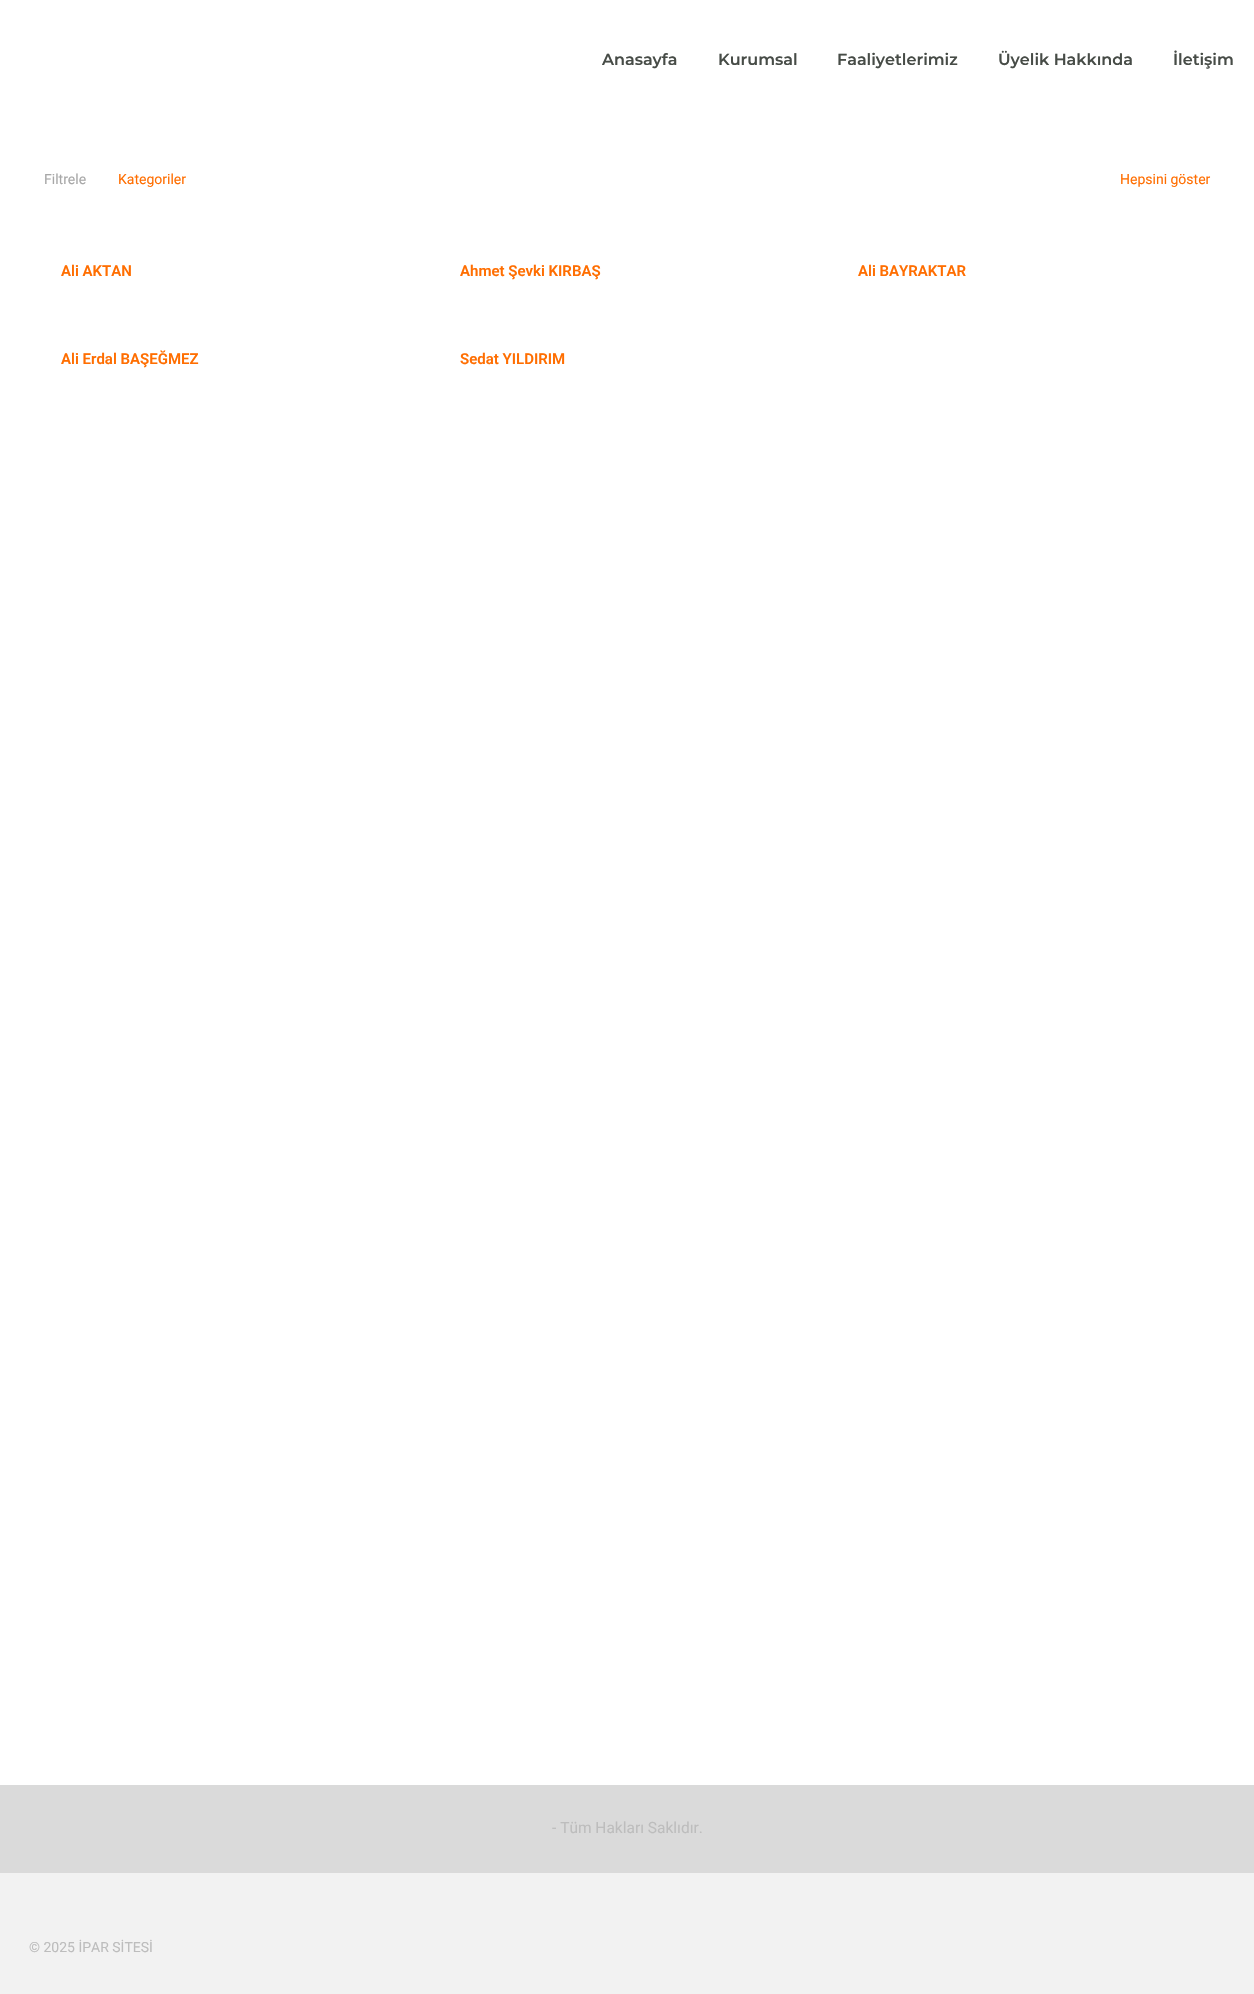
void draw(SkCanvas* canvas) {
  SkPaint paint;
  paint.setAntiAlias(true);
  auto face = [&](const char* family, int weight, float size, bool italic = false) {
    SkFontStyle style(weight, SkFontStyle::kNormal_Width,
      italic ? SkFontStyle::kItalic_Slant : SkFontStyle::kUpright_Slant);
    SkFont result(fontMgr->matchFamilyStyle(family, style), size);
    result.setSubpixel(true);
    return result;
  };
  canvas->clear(0xffffffff);
  paint.setColor(0xfff2f2f2);
  canvas->drawRect(SkRect::MakeXYWH(0, 1873, 1254, 121), paint);
  paint.setColor(0xffdadada);
  canvas->drawRect(SkRect::MakeXYWH(0, 1785, 1254, 88), paint);
  auto f0 = face("Montserrat", 600, 16);
  paint.setColor(0xff474c47);
  {
    const struct { const char* s; float x, y; } items[] = {
      {"Anasayfa", 602, 65},
      {"Kurumsal", 718, 65},
      {"Faaliyetlerimiz", 837, 65},
      {"Üyelik Hakkında", 998, 65},
      {"İletişim", 1173, 65},
    };
    for (auto [s, x, y] : items) {
      canvas->drawString(s, x, y, f0, paint);
    }
  }
  auto f1 = face("Roboto", 400, 14);
  paint.setColor(0xffa8a8a8);
  canvas->drawString("Filtrele", 44, 184, f1, paint);
  paint.setColor(0xffff6e01);
  canvas->drawString("Kategoriler", 118, 184, f1, paint);
  canvas->drawString("Hepsini göster", 1120, 184, f1, paint);
  auto f2 = face("Roboto", 600, 15);
  {
    const struct { const char* s; float x, y; } items[] = {
      {"Ali AKTAN", 61, 276},
      {"Ahmet Şevki KIRBAŞ", 460, 276},
      {"Ali BAYRAKTAR", 858, 276},
      {"Ali Erdal BAŞEĞMEZ", 61, 364},
      {"Sedat YILDIRIM", 460, 364},
    };
    for (auto [s, x, y] : items) {
      canvas->drawString(s, x, y, f2, paint);
    }
  }
  auto f3 = face("Roboto", 400, 15.5f);
  paint.setColor(0xffbdbdbd);
  canvas->drawString("- Tüm Hakları Saklıdır.", 552, 1833, f3, paint);
  canvas->drawString("© 2025 İPAR SİTESİ", 29, 1952, f1, paint);
}
